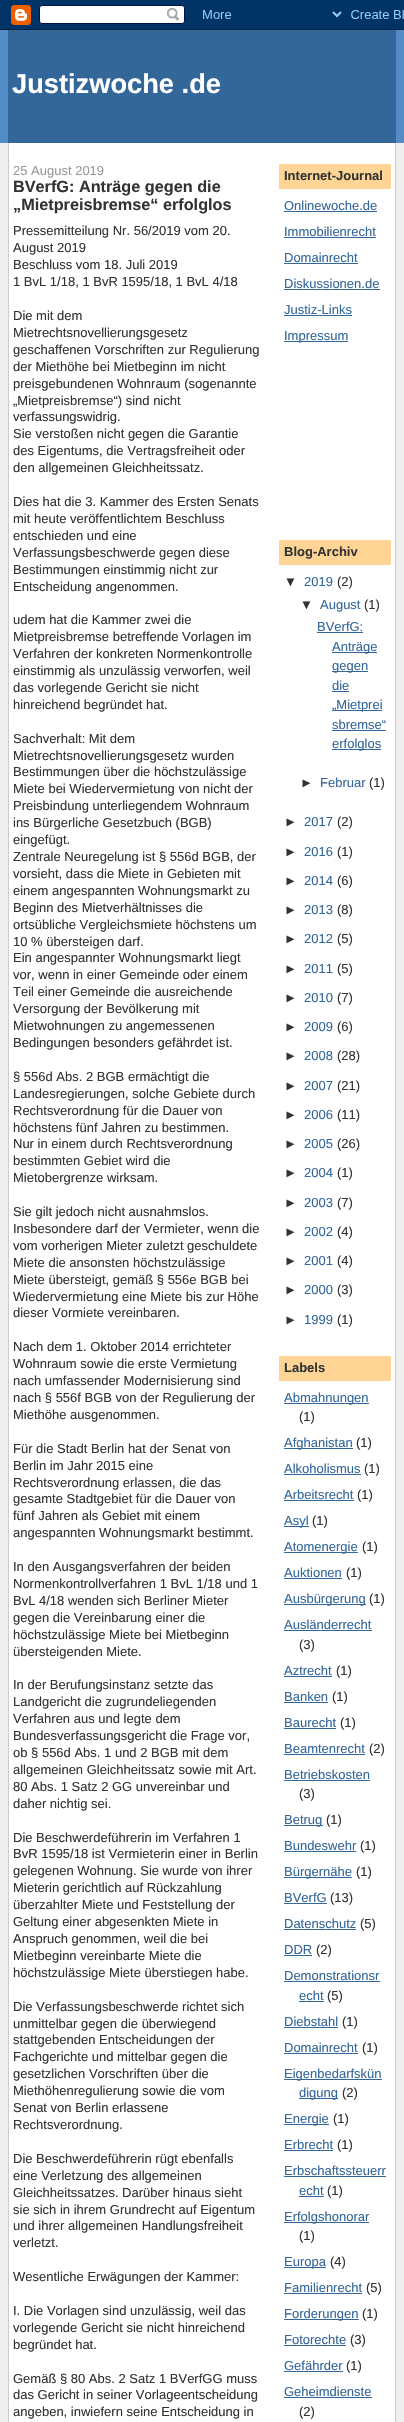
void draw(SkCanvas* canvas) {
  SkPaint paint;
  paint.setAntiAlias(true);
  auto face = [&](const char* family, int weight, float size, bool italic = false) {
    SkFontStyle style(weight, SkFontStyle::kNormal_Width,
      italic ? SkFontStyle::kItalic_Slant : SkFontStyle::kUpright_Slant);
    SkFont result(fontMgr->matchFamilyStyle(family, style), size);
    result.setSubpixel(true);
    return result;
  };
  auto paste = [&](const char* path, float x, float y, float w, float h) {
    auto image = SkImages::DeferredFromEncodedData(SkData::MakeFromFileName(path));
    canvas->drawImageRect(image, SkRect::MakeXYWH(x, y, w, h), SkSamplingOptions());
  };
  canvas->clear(0xffefefef);
  paste("img/1.png", 0, 0, 404, 30);
  {
    const struct { float x, y, w, h; SkColor color; } items[] = {
      {0, 30, 404, 113, 0xff528bc5},
      {8, 30, 388, 113, 0xff336699},
      {9, 143, 386, 2279, 0xffffffff},
      {395, 143, 1, 2279, 0xffcccccc},
      {8, 143, 1, 2279, 0xffcccccc},
      {279, 164, 112, 25, 0xffffd595},
      {284, 211, 93, 1, 0xff336699},
      {284, 237, 92, 1, 0xff336699},
      {284, 263, 74, 1, 0xff336699},
      {284, 289, 96, 1, 0xff336699},
      {284, 315, 68, 1, 0xff336699},
      {284, 341, 64, 1, 0xff336699},
      {279, 540, 112, 25, 0xffffd595},
      {317, 632, 46, 1, 0xff336699},
      {332, 652, 45, 1, 0xff336699},
      {332, 671, 36, 1, 0xff336699},
      {332, 691, 17, 1, 0xff336699},
      {332, 710, 50, 1, 0xff336699},
      {332, 730, 54, 1, 0xff336699},
      {332, 749, 49, 1, 0xff336699},
      {279, 1356, 112, 25, 0xffffd595},
      {284, 1403, 85, 1, 0xff336699},
      {284, 1448, 69, 1, 0xff336699},
      {284, 1474, 77, 1, 0xff336699},
      {284, 1500, 70, 1, 0xff336699},
      {284, 1526, 25, 1, 0xff336699},
      {284, 1552, 74, 1, 0xff336699},
      {284, 1578, 58, 1, 0xff336699},
      {284, 1604, 82, 1, 0xff336699},
      {284, 1630, 88, 1, 0xff336699},
      {284, 1676, 48, 1, 0xff336699},
      {284, 1702, 44, 1, 0xff336699},
      {284, 1728, 52, 1, 0xff336699},
      {284, 1754, 81, 1, 0xff336699},
      {284, 1780, 86, 1, 0xff336699},
      {284, 1825, 39, 1, 0xff336699},
      {284, 1851, 72, 1, 0xff336699},
      {284, 1877, 68, 1, 0xff336699},
      {284, 1903, 43, 1, 0xff336699},
      {284, 1929, 72, 1, 0xff336699},
      {284, 1955, 28, 1, 0xff336699},
      {284, 1981, 96, 1, 0xff336699},
      {299, 2001, 25, 1, 0xff336699},
      {284, 2027, 54, 1, 0xff336699},
      {284, 2053, 74, 1, 0xff336699},
      {284, 2079, 98, 1, 0xff336699},
      {299, 2098, 39, 1, 0xff336699},
      {284, 2124, 45, 1, 0xff336699},
      {284, 2150, 49, 1, 0xff336699},
      {284, 2176, 102, 1, 0xff336699},
      {299, 2196, 25, 1, 0xff336699},
      {284, 2222, 85, 1, 0xff336699},
      {284, 2267, 42, 1, 0xff336699},
      {284, 2293, 78, 1, 0xff336699},
      {284, 2319, 75, 1, 0xff336699},
      {284, 2345, 62, 1, 0xff336699},
      {284, 2371, 59, 1, 0xff336699},
      {284, 2397, 88, 1, 0xff336699},
    };
    for (auto [x, y, w, h, color] : items) {
      paint.setColor(color);
      canvas->drawRect(SkRect::MakeXYWH(x, y, w, h), paint);
    }
  }
  auto f0 = face("Liberation Sans", 700, 27.25f);
  paint.setColor(0xffffffff);
  canvas->drawString("Justizwoche .de", 12, 93, f0, paint);
  auto f1 = face("Liberation Sans", 400, 13);
  paint.setColor(0xff999999);
  canvas->drawString("25 August 2019", 13, 175, f1, paint);
  auto f2 = face("Liberation Sans", 700, 16.25f);
  paint.setColor(0xff333333);
  canvas->drawString("BVerfG: Anträge gegen die", 13, 192, f2, paint);
  canvas->drawString("„Mietpreisbremse“ erfolglos", 13, 210, f2, paint);
  {
    const struct { const char* s; float x, y; } items[] = {
      {"Pressemitteilung Nr. 56/2019 vom 20.", 13, 235},
      {"August 2019", 13, 252},
      {"Beschluss vom 18. Juli 2019", 13, 269},
      {"1 BvL 1/18, 1 BvR 1595/18, 1 BvL 4/18", 13, 286},
      {"Die mit dem", 13, 320},
      {"Mietrechtsnovellierungsgesetz", 13, 337},
      {"geschaffenen Vorschriften zur Regulierung", 13, 354},
      {"der Miethöhe bei Mietbeginn im nicht", 13, 371},
      {"preisgebundenen Wohnraum (sogenannte", 13, 388},
      {"„Mietpreisbremse“) sind nicht", 13, 405},
      {"verfassungswidrig.", 13, 421},
      {"Sie verstoßen nicht gegen die Garantie", 13, 438},
      {"des Eigentums, die Vertragsfreiheit oder", 13, 455},
      {"den allgemeinen Gleichheitssatz.", 13, 472},
      {"Dies hat die 3. Kammer des Ersten Senats", 13, 506},
      {"mit heute veröffentlichtem Beschluss", 13, 523},
      {"entschieden und eine", 13, 540},
      {"Verfassungsbeschwerde gegen diese", 13, 557},
      {"Bestimmungen einstimmig nicht zur", 13, 574},
      {"Entscheidung angenommen.", 13, 591},
      {"udem hat die Kammer zwei die", 13, 624},
      {"Mietpreisbremse betreffende Vorlagen im", 13, 641},
      {"Verfahren der konkreten Normenkontrolle", 13, 658},
      {"einstimmig als unzulässig verworfen, weil", 13, 675},
      {"das vorlegende Gericht sie nicht", 13, 692},
      {"hinreichend begründet hat.", 13, 709},
      {"Sachverhalt: Mit dem", 13, 743},
      {"Mietrechtsnovellierungsgesetz wurden", 13, 760},
      {"Bestimmungen über die höchstzulässige", 13, 776},
      {"Miete bei Wiedervermietung von nicht der", 13, 793},
      {"Preisbindung unterliegendem Wohnraum", 13, 810},
      {"ins Bürgerliche Gesetzbuch (BGB)", 13, 827},
      {"eingefügt.", 13, 844},
      {"Zentrale Neuregelung ist § 556d BGB, der", 13, 861},
      {"vorsieht, dass die Miete in Gebieten mit", 13, 878},
      {"einem angespannten Wohnungsmarkt zu", 13, 895},
      {"Beginn des Mietverhältnisses die", 13, 912},
      {"ortsübliche Vergleichsmiete höchstens um", 13, 929},
      {"10 % übersteigen darf.", 13, 946},
      {"Ein angespannter Wohnungsmarkt liegt", 13, 962},
      {"vor, wenn in einer Gemeinde oder einem", 13, 979},
      {"Teil einer Gemeinde die ausreichende", 13, 996},
      {"Versorgung der Bevölkerung mit", 13, 1013},
      {"Mietwohnungen zu angemessenen", 13, 1030},
      {"Bedingungen besonders gefährdet ist.", 13, 1047},
      {"§ 556d Abs. 2 BGB ermächtigt die", 13, 1081},
      {"Landesregierungen, solche Gebiete durch", 13, 1098},
      {"Rechtsverordnung für die Dauer von", 13, 1115},
      {"höchstens fünf Jahren zu bestimmen.", 13, 1132},
      {"Nur in einem durch Rechtsverordnung", 13, 1148},
      {"bestimmten Gebiet wird die", 13, 1165},
      {"Mietobergrenze wirksam.", 13, 1182},
      {"Sie gilt jedoch nicht ausnahmslos.", 13, 1216},
      {"Insbesondere darf der Vermieter, wenn die", 13, 1233},
      {"vom vorherigen Mieter zuletzt geschuldete", 13, 1250},
      {"Miete die ansonsten höchstzulässige", 13, 1267},
      {"Miete übersteigt, gemäß § 556e BGB bei", 13, 1284},
      {"Wiedervermietung eine Miete bis zur Höhe", 13, 1301},
      {"dieser Vormiete vereinbaren.", 13, 1317},
      {"Nach dem 1. Oktober 2014 errichteter", 13, 1351},
      {"Wohnraum sowie die erste Vermietung", 13, 1368},
      {"nach umfassender Modernisierung sind", 13, 1385},
      {"nach § 556f BGB von der Regulierung der", 13, 1402},
      {"Miethöhe ausgenommen.", 13, 1419},
      {"Für die Stadt Berlin hat der Senat von", 13, 1453},
      {"Berlin im Jahr 2015 eine", 13, 1470},
      {"Rechtsverordnung erlassen, die das", 13, 1487},
      {"gesamte Stadtgebiet für die Dauer von", 13, 1503},
      {"fünf Jahren als Gebiet mit einem", 13, 1520},
      {"angespannten Wohnungsmarkt bestimmt.", 13, 1537},
      {"In den Ausgangsverfahren der beiden", 13, 1571},
      {"Normenkontrollverfahren 1 BvL 1/18 und 1", 13, 1588},
      {"BvL 4/18 wenden sich Berliner Mieter", 13, 1605},
      {"gegen die Vereinbarung einer die", 13, 1622},
      {"höchstzulässige Miete bei Mietbeginn", 13, 1639},
      {"übersteigenden Miete.", 13, 1656},
      {"In der Berufungsinstanz setzte das", 13, 1689},
      {"Landgericht die zugrundeliegenden", 13, 1706},
      {"Verfahren aus und legte dem", 13, 1723},
      {"Bundesverfassungsgericht die Frage vor,", 13, 1740},
      {"ob § 556d Abs. 1 und 2 BGB mit dem", 13, 1757},
      {"allgemeinen Gleichheitssatz sowie mit Art.", 13, 1774},
      {"80 Abs. 1 Satz 2 GG unvereinbar und", 13, 1791},
      {"daher nichtig sei.", 13, 1808},
      {"Die Beschwerdeführerin im Verfahren 1", 13, 1842},
      {"BvR 1595/18 ist Vermieterin einer in Berlin", 13, 1858},
      {"gelegenen Wohnung. Sie wurde von ihrer", 13, 1875},
      {"Mieterin gerichtlich auf Rückzahlung", 13, 1892},
      {"überzahlter Miete und Feststellung der", 13, 1909},
      {"Geltung einer abgesenkten Miete in", 13, 1926},
      {"Anspruch genommen, weil die bei", 13, 1943},
      {"Mietbeginn vereinbarte Miete die", 13, 1960},
      {"höchstzulässige Miete überstiegen habe.", 13, 1977},
      {"Die Verfassungsbeschwerde richtet sich", 13, 2011},
      {"unmittelbar gegen die überwiegend", 13, 2028},
      {"stattgebenden Entscheidungen der", 13, 2044},
      {"Fachgerichte und mittelbar gegen die", 13, 2061},
      {"gesetzlichen Vorschriften über die", 13, 2078},
      {"Miethöhenregulierung sowie die vom", 13, 2095},
      {"Senat von Berlin erlassene", 13, 2112},
      {"Rechtsverordnung.", 13, 2129},
      {"Die Beschwerdeführerin rügt ebenfalls", 13, 2163},
      {"eine Verletzung des allgemeinen", 13, 2180},
      {"Gleichheitssatzes. Darüber hinaus sieht", 13, 2197},
      {"sie sich in ihrem Grundrecht auf Eigentum", 13, 2214},
      {"und ihrer allgemeinen Handlungsfreiheit", 13, 2230},
      {"verletzt.", 13, 2247},
      {"Wesentliche Erwägungen der Kammer:", 13, 2281},
      {"I. Die Vorlagen sind unzulässig, weil das", 13, 2315},
      {"vorlegende Gericht sie nicht hinreichend", 13, 2332},
      {"begründet hat.", 13, 2349},
      {"Gemäß § 80 Abs. 2 Satz 1 BVerfGG muss", 13, 2383},
      {"das Gericht in seiner Vorlageentscheidung", 13, 2399},
      {"angeben, inwiefern seine Entscheidung in", 13, 2416},
    };
    for (auto [s, x, y] : items) {
      canvas->drawString(s, x, y, f1, paint);
    }
  }
  auto f3 = face("Liberation Sans", 700, 13);
  canvas->drawString("Internet-Journal", 284, 180, f3, paint);
  paint.setColor(0xff336699);
  {
    const struct { const char* s; float x, y; } items[] = {
      {"Onlinewoche.de", 284, 210},
      {"Immobilienrecht", 284, 236},
      {"Domainrecht", 284, 262},
      {"Diskussionen.de", 284, 288},
      {"Justiz-Links", 284, 314},
      {"Impressum", 284, 340},
    };
    for (auto [s, x, y] : items) {
      canvas->drawString(s, x, y, f1, paint);
    }
  }
  paint.setColor(0xff333333);
  canvas->drawString("Blog-Archiv", 284, 556, f3, paint);
  canvas->drawString("▼", 284, 586, f1, paint);
  paint.setColor(0xff336699);
  canvas->drawString("2019", 304, 586, f1, paint);
  paint.setColor(0xff333333);
  canvas->drawString("(2)", 337, 586, f1, paint);
  canvas->drawString("▼", 300, 609, f1, paint);
  paint.setColor(0xff336699);
  canvas->drawString("August", 320, 609, f1, paint);
  paint.setColor(0xff333333);
  canvas->drawString("(1)", 364, 609, f1, paint);
  paint.setColor(0xff336699);
  {
    const struct { const char* s; float x, y; } items[] = {
      {"BVerfG:", 317, 631},
      {"Anträge", 332, 651},
      {"gegen", 332, 670},
      {"die", 332, 690},
      {"„Mietprei", 332, 709},
      {"sbremse“", 332, 729},
      {"erfolglos", 332, 748},
    };
    for (auto [s, x, y] : items) {
      canvas->drawString(s, x, y, f1, paint);
    }
  }
  paint.setColor(0xff333333);
  canvas->drawString("►", 300, 787, f1, paint);
  paint.setColor(0xff336699);
  canvas->drawString("Februar", 320, 787, f1, paint);
  paint.setColor(0xff333333);
  canvas->drawString("(1)", 369, 787, f1, paint);
  canvas->drawString("►", 284, 826, f1, paint);
  paint.setColor(0xff336699);
  canvas->drawString("2017", 304, 826, f1, paint);
  paint.setColor(0xff333333);
  canvas->drawString("(2)", 337, 826, f1, paint);
  canvas->drawString("►", 284, 856, f1, paint);
  paint.setColor(0xff336699);
  canvas->drawString("2016", 304, 856, f1, paint);
  paint.setColor(0xff333333);
  canvas->drawString("(1)", 337, 856, f1, paint);
  canvas->drawString("►", 284, 885, f1, paint);
  paint.setColor(0xff336699);
  canvas->drawString("2014", 304, 885, f1, paint);
  paint.setColor(0xff333333);
  canvas->drawString("(6)", 337, 885, f1, paint);
  canvas->drawString("►", 284, 914, f1, paint);
  paint.setColor(0xff336699);
  canvas->drawString("2013", 304, 914, f1, paint);
  paint.setColor(0xff333333);
  canvas->drawString("(8)", 337, 914, f1, paint);
  canvas->drawString("►", 284, 943, f1, paint);
  paint.setColor(0xff336699);
  canvas->drawString("2012", 304, 943, f1, paint);
  paint.setColor(0xff333333);
  canvas->drawString("(5)", 337, 943, f1, paint);
  canvas->drawString("►", 284, 973, f1, paint);
  paint.setColor(0xff336699);
  canvas->drawString("2011", 304, 973, f1, paint);
  paint.setColor(0xff333333);
  canvas->drawString("(5)", 337, 973, f1, paint);
  canvas->drawString("►", 284, 1002, f1, paint);
  paint.setColor(0xff336699);
  canvas->drawString("2010", 304, 1002, f1, paint);
  paint.setColor(0xff333333);
  canvas->drawString("(7)", 337, 1002, f1, paint);
  canvas->drawString("►", 284, 1031, f1, paint);
  paint.setColor(0xff336699);
  canvas->drawString("2009", 304, 1031, f1, paint);
  paint.setColor(0xff333333);
  canvas->drawString("(6)", 337, 1031, f1, paint);
  canvas->drawString("►", 284, 1060, f1, paint);
  paint.setColor(0xff336699);
  canvas->drawString("2008", 304, 1060, f1, paint);
  paint.setColor(0xff333333);
  canvas->drawString("(28)", 337, 1060, f1, paint);
  canvas->drawString("►", 284, 1090, f1, paint);
  paint.setColor(0xff336699);
  canvas->drawString("2007", 304, 1090, f1, paint);
  paint.setColor(0xff333333);
  canvas->drawString("(21)", 337, 1090, f1, paint);
  canvas->drawString("►", 284, 1119, f1, paint);
  paint.setColor(0xff336699);
  canvas->drawString("2006", 304, 1119, f1, paint);
  paint.setColor(0xff333333);
  canvas->drawString("(11)", 337, 1119, f1, paint);
  canvas->drawString("►", 284, 1148, f1, paint);
  paint.setColor(0xff336699);
  canvas->drawString("2005", 304, 1148, f1, paint);
  paint.setColor(0xff333333);
  canvas->drawString("(26)", 337, 1148, f1, paint);
  canvas->drawString("►", 284, 1177, f1, paint);
  paint.setColor(0xff336699);
  canvas->drawString("2004", 304, 1177, f1, paint);
  paint.setColor(0xff333333);
  canvas->drawString("(1)", 337, 1177, f1, paint);
  canvas->drawString("►", 284, 1207, f1, paint);
  paint.setColor(0xff336699);
  canvas->drawString("2003", 304, 1207, f1, paint);
  paint.setColor(0xff333333);
  canvas->drawString("(7)", 337, 1207, f1, paint);
  canvas->drawString("►", 284, 1236, f1, paint);
  paint.setColor(0xff336699);
  canvas->drawString("2002", 304, 1236, f1, paint);
  paint.setColor(0xff333333);
  canvas->drawString("(4)", 337, 1236, f1, paint);
  canvas->drawString("►", 284, 1265, f1, paint);
  paint.setColor(0xff336699);
  canvas->drawString("2001", 304, 1265, f1, paint);
  paint.setColor(0xff333333);
  canvas->drawString("(4)", 337, 1265, f1, paint);
  canvas->drawString("►", 284, 1294, f1, paint);
  paint.setColor(0xff336699);
  canvas->drawString("2000", 304, 1294, f1, paint);
  paint.setColor(0xff333333);
  canvas->drawString("(3)", 337, 1294, f1, paint);
  canvas->drawString("►", 284, 1324, f1, paint);
  paint.setColor(0xff336699);
  canvas->drawString("1999", 304, 1324, f1, paint);
  paint.setColor(0xff333333);
  canvas->drawString("(1)", 337, 1324, f1, paint);
  canvas->drawString("Labels", 284, 1372, f3, paint);
  paint.setColor(0xff336699);
  canvas->drawString("Abmahnungen", 284, 1402, f1, paint);
  paint.setColor(0xff333333);
  canvas->drawString("(1)", 299, 1421, f1, paint);
  paint.setColor(0xff336699);
  canvas->drawString("Afghanistan", 284, 1447, f1, paint);
  paint.setColor(0xff333333);
  canvas->drawString("(1)", 356, 1447, f1, paint);
  paint.setColor(0xff336699);
  canvas->drawString("Alkoholismus", 284, 1473, f1, paint);
  paint.setColor(0xff333333);
  canvas->drawString("(1)", 364, 1473, f1, paint);
  paint.setColor(0xff336699);
  canvas->drawString("Arbeitsrecht", 284, 1499, f1, paint);
  paint.setColor(0xff333333);
  canvas->drawString("(1)", 357, 1499, f1, paint);
  paint.setColor(0xff336699);
  canvas->drawString("Asyl", 284, 1525, f1, paint);
  paint.setColor(0xff333333);
  canvas->drawString("(1)", 312, 1525, f1, paint);
  paint.setColor(0xff336699);
  canvas->drawString("Atomenergie", 284, 1551, f1, paint);
  paint.setColor(0xff333333);
  canvas->drawString("(1)", 362, 1551, f1, paint);
  paint.setColor(0xff336699);
  canvas->drawString("Auktionen", 284, 1577, f1, paint);
  paint.setColor(0xff333333);
  canvas->drawString("(1)", 346, 1577, f1, paint);
  paint.setColor(0xff336699);
  canvas->drawString("Ausbürgerung", 284, 1603, f1, paint);
  paint.setColor(0xff333333);
  canvas->drawString("(1)", 369, 1603, f1, paint);
  paint.setColor(0xff336699);
  canvas->drawString("Ausländerrecht", 284, 1629, f1, paint);
  paint.setColor(0xff333333);
  canvas->drawString("(3)", 299, 1649, f1, paint);
  paint.setColor(0xff336699);
  canvas->drawString("Aztrecht", 284, 1675, f1, paint);
  paint.setColor(0xff333333);
  canvas->drawString("(1)", 336, 1675, f1, paint);
  paint.setColor(0xff336699);
  canvas->drawString("Banken", 284, 1701, f1, paint);
  paint.setColor(0xff333333);
  canvas->drawString("(1)", 332, 1701, f1, paint);
  paint.setColor(0xff336699);
  canvas->drawString("Baurecht", 284, 1727, f1, paint);
  paint.setColor(0xff333333);
  canvas->drawString("(1)", 340, 1727, f1, paint);
  paint.setColor(0xff336699);
  canvas->drawString("Beamtenrecht", 284, 1753, f1, paint);
  paint.setColor(0xff333333);
  canvas->drawString("(2)", 369, 1753, f1, paint);
  paint.setColor(0xff336699);
  canvas->drawString("Betriebskosten", 284, 1779, f1, paint);
  paint.setColor(0xff333333);
  canvas->drawString("(3)", 299, 1798, f1, paint);
  paint.setColor(0xff336699);
  canvas->drawString("Betrug", 284, 1824, f1, paint);
  paint.setColor(0xff333333);
  canvas->drawString("(1)", 326, 1824, f1, paint);
  paint.setColor(0xff336699);
  canvas->drawString("Bundeswehr", 284, 1850, f1, paint);
  paint.setColor(0xff333333);
  canvas->drawString("(1)", 360, 1850, f1, paint);
  paint.setColor(0xff336699);
  canvas->drawString("Bürgernähe", 284, 1876, f1, paint);
  paint.setColor(0xff333333);
  canvas->drawString("(1)", 356, 1876, f1, paint);
  paint.setColor(0xff336699);
  canvas->drawString("BVerfG", 284, 1902, f1, paint);
  paint.setColor(0xff333333);
  canvas->drawString("(13)", 330, 1902, f1, paint);
  paint.setColor(0xff336699);
  canvas->drawString("Datenschutz", 284, 1928, f1, paint);
  paint.setColor(0xff333333);
  canvas->drawString("(5)", 360, 1928, f1, paint);
  paint.setColor(0xff336699);
  canvas->drawString("DDR", 284, 1954, f1, paint);
  paint.setColor(0xff333333);
  canvas->drawString("(2)", 316, 1954, f1, paint);
  paint.setColor(0xff336699);
  canvas->drawString("Demonstrationsr", 284, 1980, f1, paint);
  canvas->drawString("echt", 299, 2000, f1, paint);
  paint.setColor(0xff333333);
  canvas->drawString("(5)", 327, 2000, f1, paint);
  paint.setColor(0xff336699);
  canvas->drawString("Diebstahl", 284, 2026, f1, paint);
  paint.setColor(0xff333333);
  canvas->drawString("(1)", 342, 2026, f1, paint);
  paint.setColor(0xff336699);
  canvas->drawString("Domainrecht", 284, 2052, f1, paint);
  paint.setColor(0xff333333);
  canvas->drawString("(1)", 362, 2052, f1, paint);
  paint.setColor(0xff336699);
  canvas->drawString("Eigenbedarfskün", 284, 2078, f1, paint);
  canvas->drawString("digung", 299, 2097, f1, paint);
  paint.setColor(0xff333333);
  canvas->drawString("(2)", 342, 2097, f1, paint);
  paint.setColor(0xff336699);
  canvas->drawString("Energie", 284, 2123, f1, paint);
  paint.setColor(0xff333333);
  canvas->drawString("(1)", 333, 2123, f1, paint);
  paint.setColor(0xff336699);
  canvas->drawString("Erbrecht", 284, 2149, f1, paint);
  paint.setColor(0xff333333);
  canvas->drawString("(1)", 337, 2149, f1, paint);
  paint.setColor(0xff336699);
  canvas->drawString("Erbschaftssteuerr", 284, 2175, f1, paint);
  canvas->drawString("echt", 299, 2195, f1, paint);
  paint.setColor(0xff333333);
  canvas->drawString("(1)", 327, 2195, f1, paint);
  paint.setColor(0xff336699);
  canvas->drawString("Erfolgshonorar", 284, 2221, f1, paint);
  paint.setColor(0xff333333);
  canvas->drawString("(1)", 299, 2240, f1, paint);
  paint.setColor(0xff336699);
  canvas->drawString("Europa", 284, 2266, f1, paint);
  paint.setColor(0xff333333);
  canvas->drawString("(4)", 330, 2266, f1, paint);
  paint.setColor(0xff336699);
  canvas->drawString("Familienrecht", 284, 2292, f1, paint);
  paint.setColor(0xff333333);
  canvas->drawString("(5)", 366, 2292, f1, paint);
  paint.setColor(0xff336699);
  canvas->drawString("Forderungen", 284, 2318, f1, paint);
  paint.setColor(0xff333333);
  canvas->drawString("(1)", 362, 2318, f1, paint);
  paint.setColor(0xff336699);
  canvas->drawString("Fotorechte", 284, 2344, f1, paint);
  paint.setColor(0xff333333);
  canvas->drawString("(3)", 350, 2344, f1, paint);
  paint.setColor(0xff336699);
  canvas->drawString("Gefährder", 284, 2370, f1, paint);
  paint.setColor(0xff333333);
  canvas->drawString("(1)", 346, 2370, f1, paint);
  paint.setColor(0xff336699);
  canvas->drawString("Geheimdienste", 284, 2396, f1, paint);
  paint.setColor(0xff333333);
  canvas->drawString("(2)", 299, 2416, f1, paint);
}
